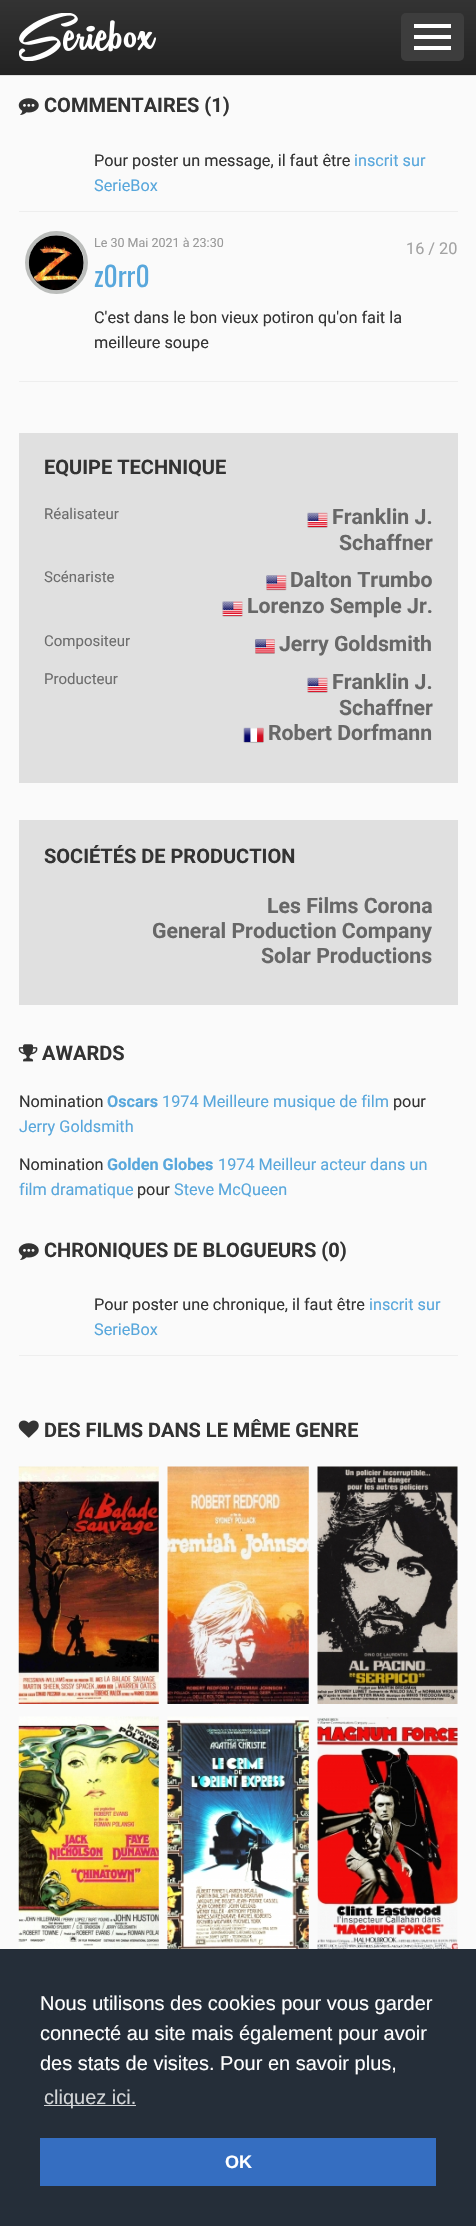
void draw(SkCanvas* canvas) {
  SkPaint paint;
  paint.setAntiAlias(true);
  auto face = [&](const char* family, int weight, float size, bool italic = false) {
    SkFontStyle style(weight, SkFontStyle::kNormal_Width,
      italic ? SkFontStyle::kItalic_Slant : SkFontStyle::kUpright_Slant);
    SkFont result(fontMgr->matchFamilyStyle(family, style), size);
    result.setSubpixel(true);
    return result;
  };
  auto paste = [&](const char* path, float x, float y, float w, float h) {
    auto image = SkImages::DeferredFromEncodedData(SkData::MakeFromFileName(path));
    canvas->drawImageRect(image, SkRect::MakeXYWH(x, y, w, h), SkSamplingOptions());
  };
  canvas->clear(0xfffafafa);
  {
    const SkColor colors[] = {0xff333333, 0xff222222};
    const float stops[] = {0, 1};
    const SkPoint ends[] = {{238, 0}, {238, 75}};
    paint.setShader(SkGradientShader::MakeLinear(ends, colors, stops, 2, SkTileMode::kClamp));
    paint.setAlpha(255);
  }
  canvas->drawRect(SkRect::MakeXYWH(0, 0, 476, 75), paint);
  paste("img/1.png", 19, 13, 137, 48);
  paint.setShader(nullptr);
  paint.setColor(0xff3d3d3d);
  canvas->drawRoundRect(SkRect::MakeXYWH(401, 13, 63, 48), 5, 5, paint);
  {
    const struct { float x, y, w, h; SkColor color; } items[] = {
      {414, 24, 37, 4, 0xffffffff},
      {414, 35, 37, 4, 0xffffffff},
      {414, 46, 37, 4, 0xffffffff},
      {0, 75, 476, 1, 0xffe0e0e0},
    };
    for (auto [x, y, w, h, color] : items) {
      paint.setColor(color);
      canvas->drawRect(SkRect::MakeXYWH(x, y, w, h), paint);
    }
  }
  paste("img/2.png", 18, 98, 21, 17);
  paint.setColor(0xffeeeeee);
  canvas->drawRect(SkRect::MakeXYWH(19, 211, 439, 1), paint);
  canvas->drawRect(SkRect::MakeXYWH(19, 381, 439, 1), paint);
  paint.setStroke(true);
  paint.setStrokeWidth(4);
  paint.setColor(0xffbbbdbb);
  canvas->drawCircle(56.5f, 262.5f, 29.5f, paint);
  paste("img/3.png", 28, 235, 56, 56);
  paint.setStroke(false);
  paint.setColor(0xffe0e0e0);
  canvas->drawRect(SkRect::MakeXYWH(19, 433, 439, 350), paint);
  paste("img/4.png", 307, 512, 21, 16);
  paste("img/5.png", 266, 575, 21, 16);
  paste("img/6.png", 222, 601, 21, 16);
  paste("img/7.png", 255, 639, 20, 15);
  paste("img/8.png", 307, 677, 21, 16);
  paste("img/9.png", 243, 727, 21, 16);
  canvas->drawRect(SkRect::MakeXYWH(19, 820, 439, 185), paint);
  paste("img/10.png", 18, 1044, 20, 18);
  paste("img/2.png", 18, 1243, 21, 17);
  paint.setColor(0xffeeeeee);
  canvas->drawRect(SkRect::MakeXYWH(19, 1355, 439, 1), paint);
  paste("img/11.png", 18, 1420, 21, 18);
  paste("img/12.png", 18, 1466, 141, 238);
  paste("img/13.png", 167, 1466, 142, 238);
  paste("img/14.png", 317, 1466, 141, 238);
  paste("img/15.png", 18, 1716, 141, 233);
  paste("img/16.png", 167, 1716, 142, 233);
  paste("img/17.png", 317, 1717, 141, 232);
  {
    const struct { float x, y, w, h; SkColor color; } items[] = {
      {0, 1949, 476, 277, 0xff252e39},
      {44, 2105, 92, 1, 0xffd3d5d7},
      {40, 2138, 396, 48, 0xff356ec1},
    };
    for (auto [x, y, w, h, color] : items) {
      paint.setColor(color);
      canvas->drawRect(SkRect::MakeXYWH(x, y, w, h), paint);
    }
  }
  auto f0 = face("Roboto", 700, 20);
  paint.setColor(0xff333333);
  canvas->drawString("COMMENTAIRES (1)", 44, 112, f0, paint);
  auto f1 = face("Roboto", 400, 16.25f);
  canvas->drawString("Pour poster un message, il faut être", 94, 166, f1, paint);
  paint.setColor(0xff58a7dc);
  canvas->drawString("inscrit sur", 354, 166, f1, paint);
  canvas->drawString("SerieBox", 94, 191, f1, paint);
  auto f2 = face("Roboto", 400, 12.5f);
  paint.setColor(0xff999999);
  canvas->drawString("Le 30 Mai 2021 à 23:30", 94, 247, f2, paint);
  paint.setColor(0xffa2a2a2);
  canvas->drawString("16 / 20", 406, 254, f1, paint);
  auto f3 = face("Oswald", 400, 27.5f);
  paint.setColor(0xff58a7dc);
  canvas->drawString("z0rr0", 94, 287, f3, paint);
  paint.setColor(0xff333333);
  canvas->drawString("C'est dans le bon vieux potiron qu'on fait la", 94, 323, f1, paint);
  canvas->drawString("meilleure soupe", 94, 348, f1, paint);
  canvas->drawString("EQUIPE TECHNIQUE", 44, 474, f0, paint);
  auto f4 = face("Roboto", 400, 15);
  paint.setColor(0xff6d6d6d);
  canvas->drawString("Réalisateur", 44, 519, f4, paint);
  auto f5 = face("Roboto", 700, 21.25f);
  paint.setColor(0xff676767);
  canvas->drawString("Franklin J.", 332, 524, f5, paint);
  canvas->drawString("Schaffner", 339, 550, f5, paint);
  paint.setColor(0xff6d6d6d);
  canvas->drawString("Scénariste", 44, 582, f4, paint);
  paint.setColor(0xff676767);
  canvas->drawString("Dalton Trumbo", 290, 587, f5, paint);
  canvas->drawString("Lorenzo Semple Jr.", 247, 613, f5, paint);
  paint.setColor(0xff6d6d6d);
  canvas->drawString("Compositeur", 44, 646, f4, paint);
  paint.setColor(0xff676767);
  canvas->drawString("Jerry Goldsmith", 279, 651, f5, paint);
  paint.setColor(0xff6d6d6d);
  canvas->drawString("Producteur", 44, 684, f4, paint);
  paint.setColor(0xff676767);
  {
    const struct { const char* s; float x, y; } items[] = {
      {"Franklin J.", 332, 689},
      {"Schaffner", 339, 715},
      {"Robert Dorfmann", 268, 740},
    };
    for (auto [s, x, y] : items) {
      canvas->drawString(s, x, y, f5, paint);
    }
  }
  paint.setColor(0xff333333);
  canvas->drawString("SOCIÉTÉS DE PRODUCTION", 44, 863, f0, paint);
  paint.setColor(0xff676767);
  {
    const struct { const char* s; float x, y; } items[] = {
      {"Les Films Corona", 267, 913},
      {"General Production Company", 152, 938},
      {"Solar Productions", 261, 963},
    };
    for (auto [s, x, y] : items) {
      canvas->drawString(s, x, y, f5, paint);
    }
  }
  paint.setColor(0xff333333);
  canvas->drawString("AWARDS", 42, 1060, f0, paint);
  canvas->drawString("Nomination", 19, 1107, f1, paint);
  auto f6 = face("Roboto", 700, 16.25f);
  paint.setColor(0xff58a7dc);
  canvas->drawString("Oscars", 107, 1107, f6, paint);
  canvas->drawString("1974 Meilleure musique de film", 162, 1107, f1, paint);
  paint.setColor(0xff333333);
  canvas->drawString("pour", 393, 1107, f1, paint);
  paint.setColor(0xff58a7dc);
  canvas->drawString("Jerry Goldsmith", 19, 1132, f1, paint);
  paint.setColor(0xff333333);
  canvas->drawString("Nomination", 19, 1170, f1, paint);
  paint.setColor(0xff58a7dc);
  canvas->drawString("Golden Globes", 107, 1170, f6, paint);
  canvas->drawString("1974 Meilleur acteur dans un", 218, 1170, f1, paint);
  canvas->drawString("film dramatique", 19, 1195, f1, paint);
  paint.setColor(0xff333333);
  canvas->drawString("pour", 137, 1195, f1, paint);
  paint.setColor(0xff58a7dc);
  canvas->drawString("Steve McQueen", 174, 1195, f1, paint);
  paint.setColor(0xff333333);
  canvas->drawString("CHRONIQUES DE BLOGUEURS (0)", 44, 1257, f0, paint);
  canvas->drawString("Pour poster une chronique, il faut être", 94, 1310, f1, paint);
  paint.setColor(0xff58a7dc);
  canvas->drawString("inscrit sur", 369, 1310, f1, paint);
  canvas->drawString("SerieBox", 94, 1335, f1, paint);
  paint.setColor(0xff333333);
  canvas->drawString("DES FILMS DANS LE MÊME GENRE", 44, 1437, f0, paint);
  auto f7 = face("Liberation Sans", 400, 20);
  paint.setColor(0xffffffff);
  {
    const struct { const char* s; float x, y; } items[] = {
      {"Nous utilisons des cookies pour vous garder", 40, 2010},
      {"connecté au site mais également pour avoir", 40, 2040},
      {"des stats de visites. Pour en savoir plus,", 40, 2070},
    };
    for (auto [s, x, y] : items) {
      canvas->drawString(s, x, y, f7, paint);
    }
  }
  paint.setColor(0xffd3d5d7);
  canvas->drawString("cliquez ici.", 44, 2104, f7, paint);
  auto f8 = face("Liberation Sans", 700, 18);
  paint.setColor(0xffffffff);
  canvas->drawString("OK", 225, 2168, f8, paint);
}
